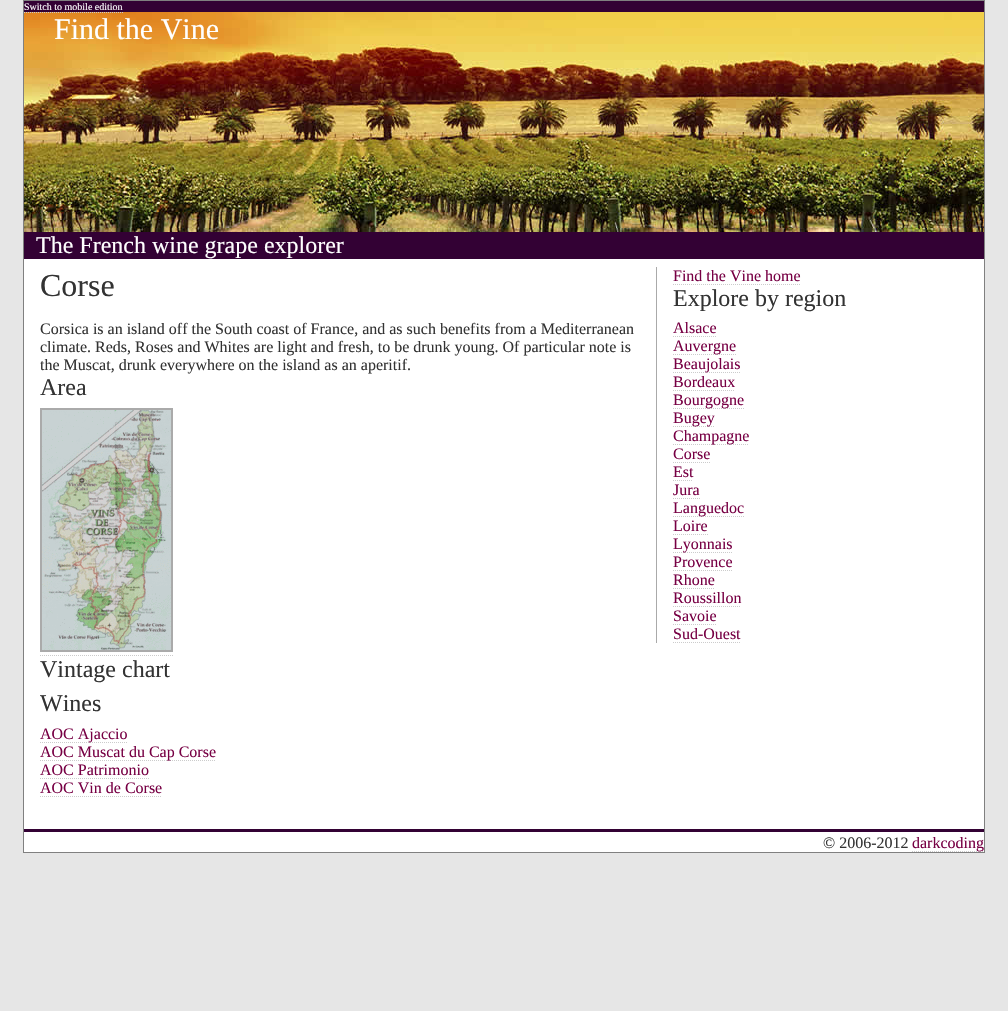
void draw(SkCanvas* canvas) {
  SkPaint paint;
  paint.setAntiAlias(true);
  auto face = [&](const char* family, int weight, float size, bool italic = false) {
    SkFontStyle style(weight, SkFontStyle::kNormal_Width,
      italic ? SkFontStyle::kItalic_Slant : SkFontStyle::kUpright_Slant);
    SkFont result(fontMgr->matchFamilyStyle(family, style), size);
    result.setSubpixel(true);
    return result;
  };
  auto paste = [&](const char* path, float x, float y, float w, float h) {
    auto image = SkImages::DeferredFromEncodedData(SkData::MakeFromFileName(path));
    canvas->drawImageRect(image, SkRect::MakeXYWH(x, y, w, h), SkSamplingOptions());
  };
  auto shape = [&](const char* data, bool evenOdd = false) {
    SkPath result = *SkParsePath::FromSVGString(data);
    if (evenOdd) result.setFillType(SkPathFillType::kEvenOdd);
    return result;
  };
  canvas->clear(0xffe6e6e6);
  paint.setColor(0xffffffff);
  canvas->drawRect(SkRect::MakeXYWH(24, 259, 960, 593), paint);
  paint.setStroke(true);
  paint.setStrokeWidth(1);
  paint.setColor(0xff808080);
  canvas->drawRect(SkRect::MakeXYWH(23.5f, 0.5f, 961, 852), paint);
  paint.setStroke(false);
  paint.setColor(0xff330134);
  canvas->drawRect(SkRect::MakeXYWH(24, 1, 960, 11), paint);
  paste("img/1.png", 24, 12, 960, 220);
  paint.setStroke(true);
  paint.setColor(0xffcccccc);
  paint.setPathEffect(SkDashPathEffect::Make({{1, 1}}, 0));
  canvas->drawPath(shape("M24 12.5H123"), paint);
  paint.setPathEffect(nullptr);
  paint.setStroke(false);
  paint.setColor(0xff330134);
  canvas->drawRect(SkRect::MakeXYWH(24, 232, 960, 27), paint);
  paint.setStroke(true);
  paint.setStrokeWidth(2);
  paint.setColor(0xffaaaaaa);
  canvas->drawRect(SkRect::MakeXYWH(41, 409, 131, 242), paint);
  paste("img/2.png", 42, 410, 129, 240);
  paint.setStrokeWidth(1);
  paint.setColor(0xffcccccc);
  paint.setPathEffect(SkDashPathEffect::Make({{1, 1}}, 0));
  canvas->drawPath(shape("M40 655.5H173"), paint);
  paint.setPathEffect(nullptr);
  paint.setPathEffect(SkDashPathEffect::Make({{1, 1}}, 0));
  canvas->drawPath(shape("M40 742.5H128"), paint);
  paint.setPathEffect(nullptr);
  paint.setPathEffect(SkDashPathEffect::Make({{1, 1}}, 0));
  canvas->drawPath(shape("M40 760.5H216"), paint);
  paint.setPathEffect(nullptr);
  paint.setPathEffect(SkDashPathEffect::Make({{1, 1}}, 0));
  canvas->drawPath(shape("M40 778.5H149"), paint);
  paint.setPathEffect(nullptr);
  paint.setPathEffect(SkDashPathEffect::Make({{1, 1}}, 0));
  canvas->drawPath(shape("M40 796.5H162"), paint);
  paint.setPathEffect(nullptr);
  paint.setStroke(false);
  paint.setColor(0xffaaaaaa);
  canvas->drawRect(SkRect::MakeXYWH(656, 267, 1, 376), paint);
  paint.setStroke(true);
  paint.setColor(0xffcccccc);
  paint.setPathEffect(SkDashPathEffect::Make({{1, 1}}, 0));
  canvas->drawPath(shape("M673 284.5H801"), paint);
  paint.setPathEffect(nullptr);
  paint.setPathEffect(SkDashPathEffect::Make({{1, 1}}, 0));
  canvas->drawPath(shape("M673 336.5H717"), paint);
  paint.setPathEffect(nullptr);
  paint.setPathEffect(SkDashPathEffect::Make({{1, 1}}, 0));
  canvas->drawPath(shape("M673 354.5H736"), paint);
  paint.setPathEffect(nullptr);
  paint.setPathEffect(SkDashPathEffect::Make({{1, 1}}, 0));
  canvas->drawPath(shape("M673 372.5H741"), paint);
  paint.setPathEffect(nullptr);
  paint.setPathEffect(SkDashPathEffect::Make({{1, 1}}, 0));
  canvas->drawPath(shape("M673 390.5H735"), paint);
  paint.setPathEffect(nullptr);
  paint.setPathEffect(SkDashPathEffect::Make({{1, 1}}, 0));
  canvas->drawPath(shape("M673 408.5H744"), paint);
  paint.setPathEffect(nullptr);
  paint.setPathEffect(SkDashPathEffect::Make({{1, 1}}, 0));
  canvas->drawPath(shape("M673 426.5H715"), paint);
  paint.setPathEffect(nullptr);
  paint.setPathEffect(SkDashPathEffect::Make({{1, 1}}, 0));
  canvas->drawPath(shape("M673 444.5H749"), paint);
  paint.setPathEffect(nullptr);
  paint.setPathEffect(SkDashPathEffect::Make({{1, 1}}, 0));
  canvas->drawPath(shape("M673 462.5H710"), paint);
  paint.setPathEffect(nullptr);
  paint.setPathEffect(SkDashPathEffect::Make({{1, 1}}, 0));
  canvas->drawPath(shape("M673 480.5H693"), paint);
  paint.setPathEffect(nullptr);
  paint.setPathEffect(SkDashPathEffect::Make({{1, 1}}, 0));
  canvas->drawPath(shape("M673 498.5H700"), paint);
  paint.setPathEffect(nullptr);
  paint.setPathEffect(SkDashPathEffect::Make({{1, 1}}, 0));
  canvas->drawPath(shape("M673 516.5H744"), paint);
  paint.setPathEffect(nullptr);
  paint.setPathEffect(SkDashPathEffect::Make({{1, 1}}, 0));
  canvas->drawPath(shape("M673 534.5H708"), paint);
  paint.setPathEffect(nullptr);
  paint.setPathEffect(SkDashPathEffect::Make({{1, 1}}, 0));
  canvas->drawPath(shape("M673 552.5H733"), paint);
  paint.setPathEffect(nullptr);
  paint.setPathEffect(SkDashPathEffect::Make({{1, 1}}, 0));
  canvas->drawPath(shape("M673 570.5H733"), paint);
  paint.setPathEffect(nullptr);
  paint.setPathEffect(SkDashPathEffect::Make({{1, 1}}, 0));
  canvas->drawPath(shape("M673 588.5H715"), paint);
  paint.setPathEffect(nullptr);
  paint.setPathEffect(SkDashPathEffect::Make({{1, 1}}, 0));
  canvas->drawPath(shape("M673 606.5H741"), paint);
  paint.setPathEffect(nullptr);
  paint.setPathEffect(SkDashPathEffect::Make({{1, 1}}, 0));
  canvas->drawPath(shape("M673 624.5H717"), paint);
  paint.setPathEffect(nullptr);
  paint.setPathEffect(SkDashPathEffect::Make({{1, 1}}, 0));
  canvas->drawPath(shape("M673 642.5H741"), paint);
  paint.setPathEffect(nullptr);
  paint.setStroke(false);
  paint.setColor(0xff330134);
  canvas->drawRect(SkRect::MakeXYWH(24, 829, 960, 3), paint);
  paint.setStroke(true);
  paint.setColor(0xffcccccc);
  paint.setPathEffect(SkDashPathEffect::Make({{1, 1}}, 0));
  canvas->drawPath(shape("M912 851.5H984"), paint);
  paint.setPathEffect(nullptr);
  auto f0 = face("Liberation Serif", 400, 10);
  paint.setStroke(false);
  paint.setColor(0xffffffff);
  canvas->drawString("Switch to mobile edition", 24, 10, f0, paint);
  auto f1 = face("Liberation Serif", 400, 30);
  canvas->drawString("Find the Vine", 54, 39, f1, paint);
  auto f2 = face("Liberation Serif", 400, 24);
  canvas->drawString("The French wine grape explorer", 36, 253, f2, paint);
  auto f3 = face("Liberation Serif", 400, 32);
  paint.setColor(0xff333333);
  canvas->drawString("Corse", 40, 296, f3, paint);
  auto f4 = face("Liberation Serif", 400, 16);
  {
    const struct { const char* s; float x, y; } items[] = {
      {"Corsica is an island off the South coast of France, and as such benefits from a Mediterranean", 40, 334},
      {"climate. Reds, Roses and Whites are light and fresh, to be drunk young. Of particular note is", 40, 352},
      {"the Muscat, drunk everywhere on the island as an aperitif.", 40, 370},
    };
    for (auto [s, x, y] : items) {
      canvas->drawString(s, x, y, f4, paint);
    }
  }
  {
    const struct { const char* s; float x, y; } items[] = {
      {"Area", 40, 395},
      {"Vintage chart", 40, 677},
      {"Wines", 40, 711},
    };
    for (auto [s, x, y] : items) {
      canvas->drawString(s, x, y, f2, paint);
    }
  }
  paint.setColor(0xff770044);
  {
    const struct { const char* s; float x, y; } items[] = {
      {"AOC Ajaccio", 40, 739},
      {"AOC Muscat du Cap Corse", 40, 757},
      {"AOC Patrimonio", 40, 775},
      {"AOC Vin de Corse", 40, 793},
      {"Find the Vine home", 673, 281},
    };
    for (auto [s, x, y] : items) {
      canvas->drawString(s, x, y, f4, paint);
    }
  }
  paint.setColor(0xff333333);
  canvas->drawString("Explore by region", 673, 306, f2, paint);
  paint.setColor(0xff770044);
  {
    const struct { const char* s; float x, y; } items[] = {
      {"Alsace", 673, 333},
      {"Auvergne", 673, 351},
      {"Beaujolais", 673, 369},
      {"Bordeaux", 673, 387},
      {"Bourgogne", 673, 405},
      {"Bugey", 673, 423},
      {"Champagne", 673, 441},
      {"Corse", 673, 459},
      {"Est", 673, 477},
      {"Jura", 673, 495},
      {"Languedoc", 673, 513},
      {"Loire", 673, 531},
      {"Lyonnais", 673, 549},
      {"Provence", 673, 567},
      {"Rhone", 673, 585},
      {"Roussillon", 673, 603},
      {"Savoie", 673, 621},
      {"Sud-Ouest", 673, 639},
    };
    for (auto [s, x, y] : items) {
      canvas->drawString(s, x, y, f4, paint);
    }
  }
  paint.setColor(0xff333333);
  canvas->drawString("© 2006-2012", 823, 848, f4, paint);
  paint.setColor(0xff770044);
  canvas->drawString("darkcoding", 912, 848, f4, paint);
}
